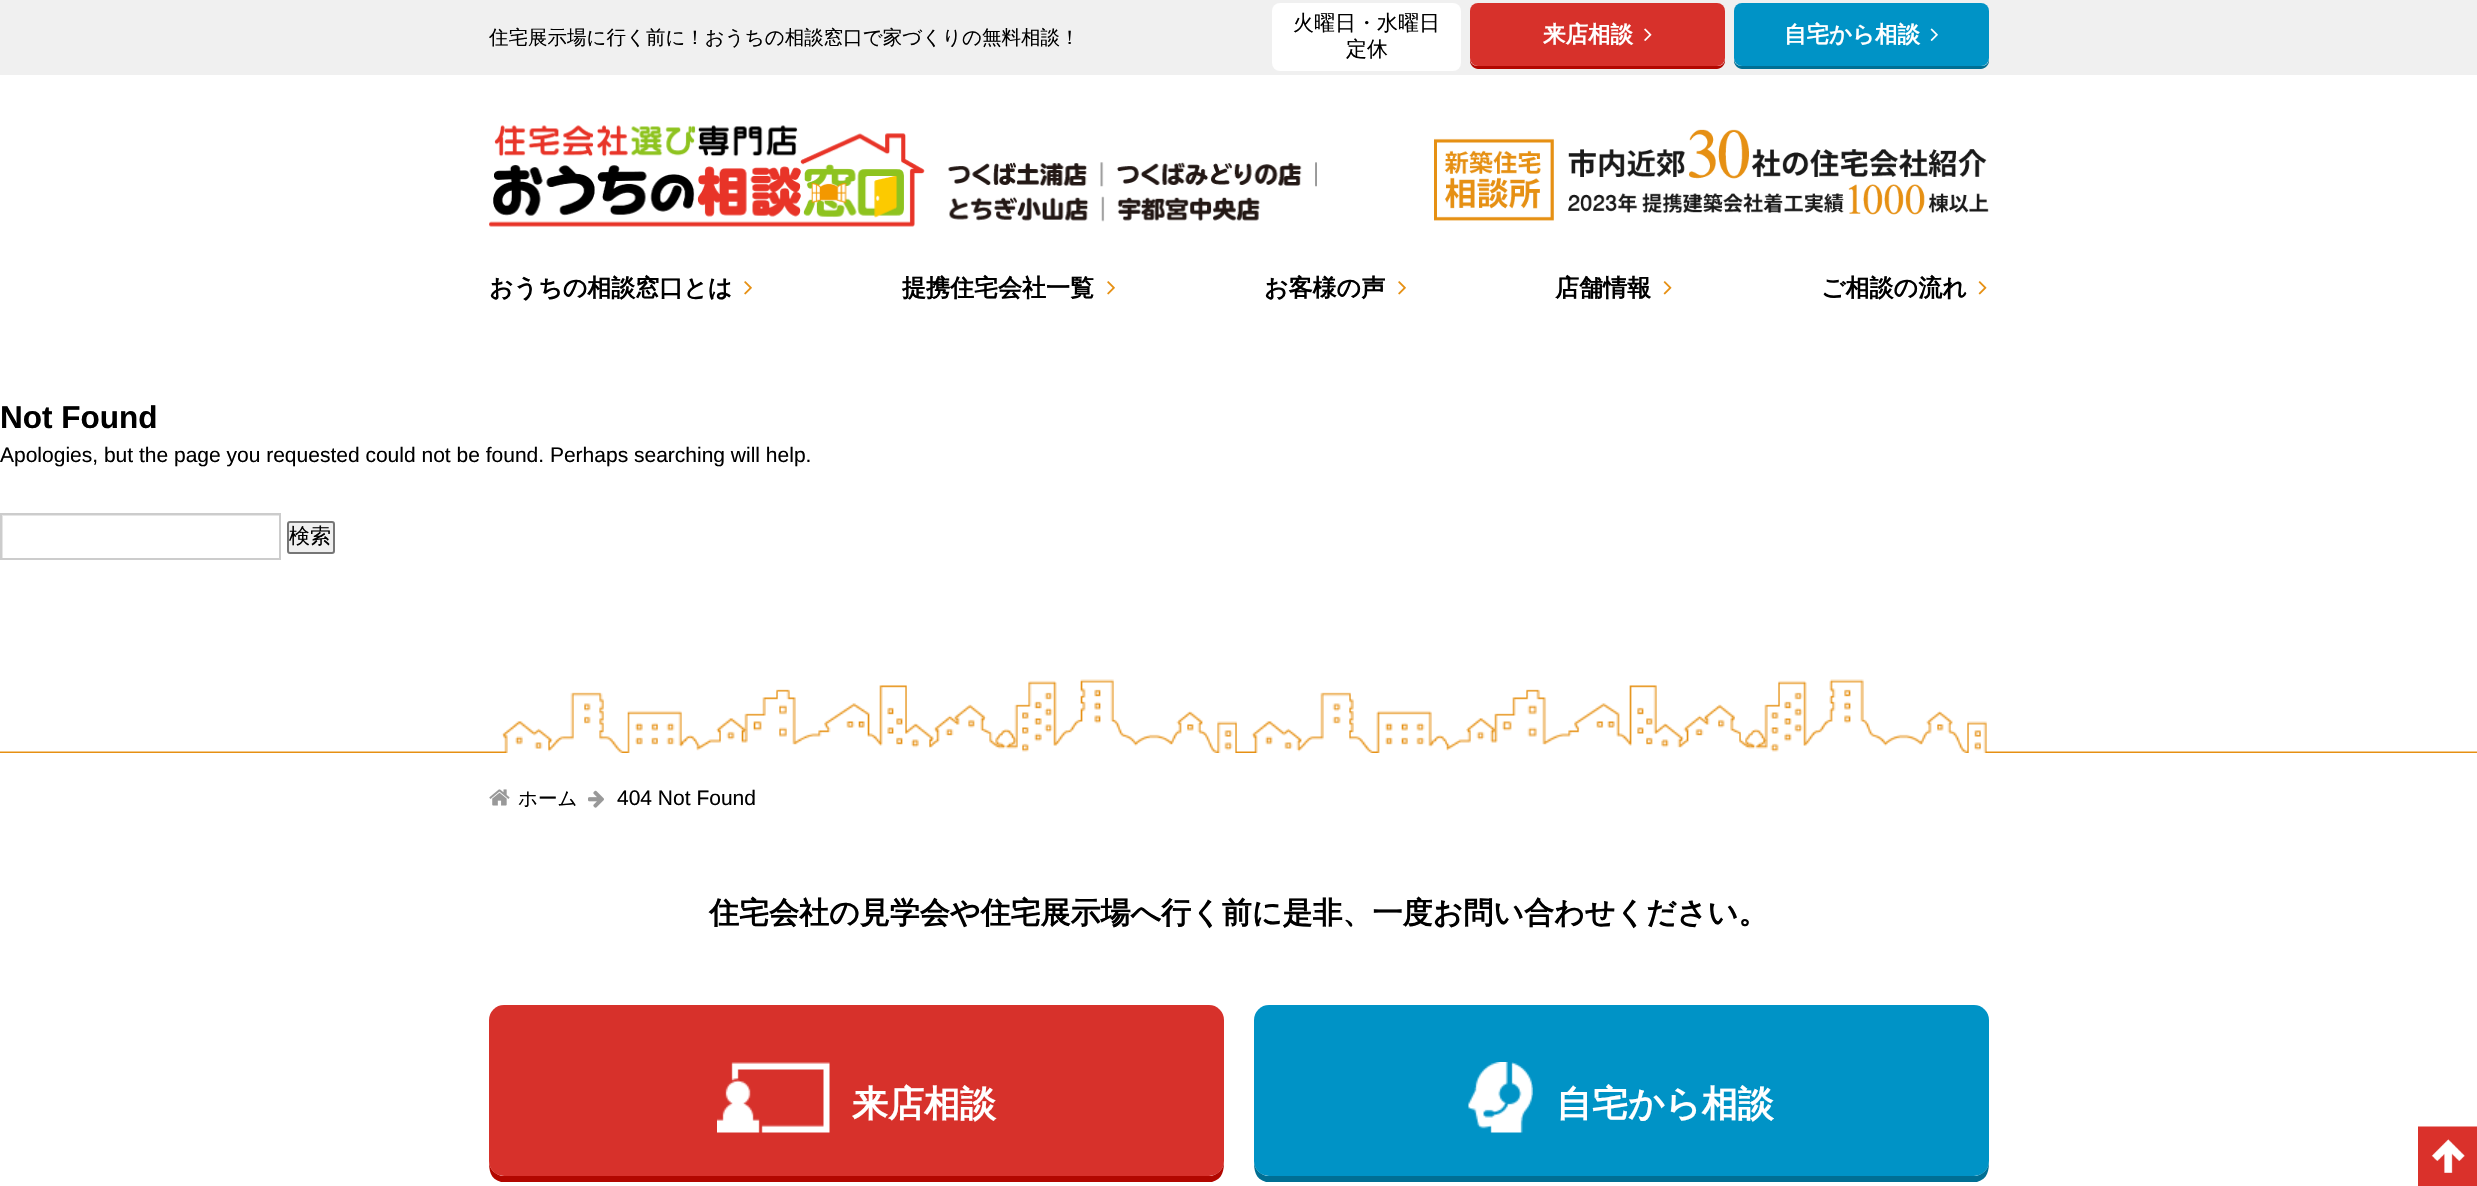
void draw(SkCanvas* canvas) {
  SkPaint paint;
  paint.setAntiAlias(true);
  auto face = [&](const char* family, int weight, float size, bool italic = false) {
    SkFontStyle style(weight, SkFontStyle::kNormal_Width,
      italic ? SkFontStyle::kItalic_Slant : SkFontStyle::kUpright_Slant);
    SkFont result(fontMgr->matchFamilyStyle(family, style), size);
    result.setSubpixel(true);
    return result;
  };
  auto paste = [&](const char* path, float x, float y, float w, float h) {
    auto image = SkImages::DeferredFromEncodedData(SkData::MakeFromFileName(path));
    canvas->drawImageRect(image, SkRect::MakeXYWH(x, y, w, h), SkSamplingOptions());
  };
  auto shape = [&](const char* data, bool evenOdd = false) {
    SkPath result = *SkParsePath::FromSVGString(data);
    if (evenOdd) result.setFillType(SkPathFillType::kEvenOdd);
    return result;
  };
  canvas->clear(0xffffffff);
  paint.setColor(0xfff0f0f0);
  canvas->drawRect(SkRect::MakeXYWH(0, 0, 2477, 75), paint);
  paint.setColor(0xffffffff);
  canvas->drawRoundRect(SkRect::MakeXYWH(1272, 3, 189, 68), 8, 8, paint);
  paint.setColor(0xffb20700);
  canvas->drawPath(shape("M1470 58V61C1470 65 1474 69 1478 69H1717C1721 69 1725 65 1725 61V58C1725 63 1722 66 1718 66H1478C1473 66 1470 63 1470 58Z"), paint);
  paint.setColor(0xffd7312b);
  canvas->drawRoundRect(SkRect::MakeXYWH(1470, 3, 255, 63), 8, 8, paint);
  paste("img/1.png", 1644, 28, 8, 13);
  paint.setColor(0xff006f94);
  canvas->drawPath(shape("M1734 58V61C1734 65 1738 69 1742 69H1981C1985 69 1989 65 1989 61V58C1989 63 1986 66 1982 66H1742C1737 66 1734 63 1734 58Z"), paint);
  paint.setColor(0xff0093c6);
  canvas->drawRoundRect(SkRect::MakeXYWH(1734, 3, 255, 63), 8, 8, paint);
  paste("img/2.png", 1930, 28, 8, 13);
  paste("img/3.png", 489, 125, 828, 102);
  paste("img/4.png", 1434, 129, 555, 92);
  paste("img/5.png", 744, 281, 8, 14);
  paste("img/5.png", 1107, 281, 8, 14);
  paste("img/5.png", 1398, 281, 8, 14);
  paste("img/6.png", 1663, 281, 9, 14);
  paste("img/6.png", 1978, 281, 9, 14);
  canvas->save();
  canvas->clipRect(SkRect::MakeXYWH(2, 515, 277, 43));
  paint.setColor(0xffe6e6e6);
  canvas->drawPath(shape("M-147 366H428V706H-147ZM3 516H280V560H3Z", true), paint);
  canvas->restore();
  paint.setStroke(true);
  paint.setStrokeWidth(2);
  paint.setColor(0xffcccccc);
  canvas->drawRect(SkRect::MakeXYWH(1, 514, 279, 45), paint);
  paint.setStroke(false);
  paint.setColor(0xffefefef);
  canvas->drawRoundRect(SkRect::MakeXYWH(288, 522, 46, 31), 2, 2, paint);
  paint.setStroke(true);
  paint.setColor(0xff767676);
  canvas->drawRoundRect(SkRect::MakeXYWH(288, 522, 46, 31), 2, 2, paint);
  paste("img/7.png", 0, 679, 2477, 74);
  paste("img/8.png", 489, 789, 21, 17);
  paste("img/9.png", 588, 790, 16, 18);
  paint.setStroke(false);
  paint.setColor(0xffb20700);
  canvas->drawPath(shape("M489 1161C489 1170 490 1179 501 1182H1212C1223 1179 1224 1170 1224 1161C1224 1169 1217 1176 1209 1176H504C496 1176 489 1169 489 1161Z"), paint);
  paint.setColor(0xffd7312b);
  canvas->drawRoundRect(SkRect::MakeXYWH(489, 1005, 735, 171), 15, 15, paint);
  paste("img/10.png", 717, 1062, 113, 71);
  paint.setColor(0xff006f94);
  canvas->drawPath(shape("M1254 1161C1254 1170 1255 1179 1266 1182H1977C1988 1179 1989 1170 1989 1161C1989 1169 1982 1176 1974 1176H1269C1261 1176 1254 1169 1254 1161Z"), paint);
  paint.setColor(0xff0093c6);
  canvas->drawRoundRect(SkRect::MakeXYWH(1254, 1005, 735, 171), 15, 15, paint);
  paste("img/11.png", 1468, 1062, 65, 71);
  paste("img/12.png", 2418, 1126, 59, 60);
  auto f0 = face("WenQuanYi Zen Hei", 500, 19.5f);
  paint.setColor(0xff000000);
  canvas->drawString("住宅展示場に行く前に！おうちの相談窓口で家づくりの無料相談！", 489, 44, f0, paint);
  auto f1 = face("WenQuanYi Zen Hei", 500, 21);
  canvas->drawString("火曜日・水曜日", 1293, 30, f1, paint);
  canvas->drawString("定休", 1346, 56, f1, paint);
  auto f2 = face("WenQuanYi Zen Hei", 700, 22.5f);
  paint.setColor(0xffffffff);
  canvas->drawString("来店相談", 1543, 42, f2, paint);
  canvas->drawString("自宅から相談", 1784, 42, f2, paint);
  auto f3 = face("WenQuanYi Zen Hei", 700, 24);
  paint.setColor(0xff000000);
  {
    const struct { const char* s; float x, y; } items[] = {
      {"おうちの相談窓口とは", 489, 296},
      {"提携住宅会社一覧", 902, 296},
      {"お客様の声", 1264, 296},
      {"店舗情報", 1555, 296},
      {"ご相談の流れ", 1821, 296},
    };
    for (auto [s, x, y] : items) {
      canvas->drawString(s, x, y, f3, paint);
    }
  }
  auto f4 = face("Liberation Sans", 700, 31.5f);
  canvas->drawString("Not Found", 0, 428, f4, paint);
  auto f5 = face("Liberation Sans", 400, 21);
  canvas->drawString("Apologies, but the page you requested could not be found. Perhaps searching will help.", 0, 462, f5, paint);
  canvas->drawString("検索", 289, 543, f1, paint);
  canvas->drawString("ホーム", 518, 805, f0, paint);
  canvas->drawString("404 Not Found", 617, 805, f5, paint);
  auto f6 = face("WenQuanYi Zen Hei", 700, 30);
  canvas->drawString("住宅会社の見学会や住宅展示場へ行く前に是非、一度お問い合わせください。", 709, 923, f6, paint);
  auto f7 = face("WenQuanYi Zen Hei", 700, 36);
  paint.setColor(0xffffffff);
  canvas->drawString("来店相談", 852, 1116, f7, paint);
  canvas->drawString("自宅から相談", 1556, 1116, f7, paint);
}
